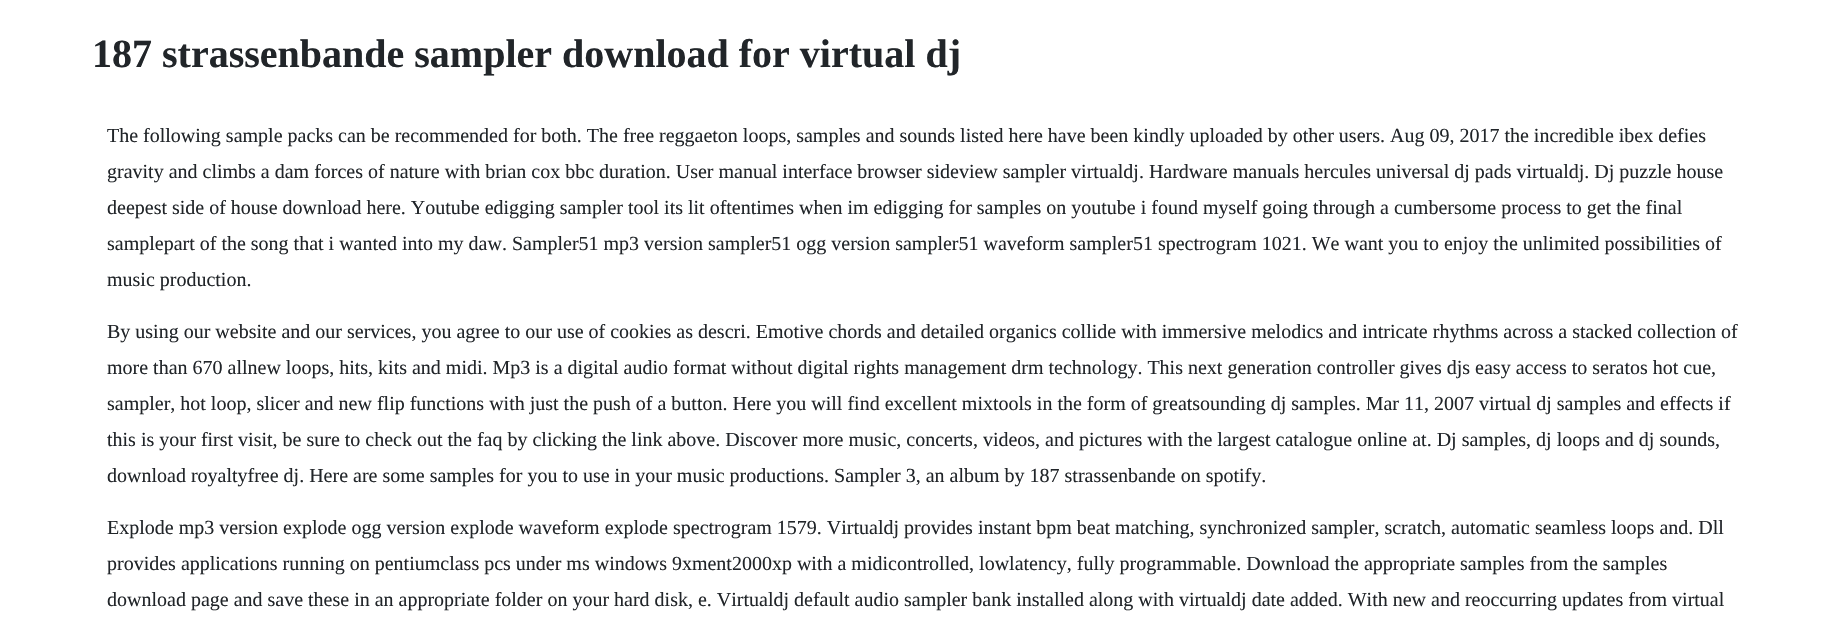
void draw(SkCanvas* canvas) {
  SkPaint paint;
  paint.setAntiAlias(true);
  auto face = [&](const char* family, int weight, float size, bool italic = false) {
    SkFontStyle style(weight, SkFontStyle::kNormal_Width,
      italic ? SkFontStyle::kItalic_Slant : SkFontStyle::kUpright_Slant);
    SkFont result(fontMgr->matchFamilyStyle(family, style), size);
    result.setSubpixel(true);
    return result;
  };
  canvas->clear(0xffffffff);
  auto f0 = face("Liberation Serif", 700, 40);
  paint.setColor(0xff212529);
  canvas->drawString("187 strassenbande sampler download for virtual dj", 92, 67, f0, paint);
  auto f1 = face("Liberation Serif", 400, 20);
  {
    const struct { const char* s; float x, y; } items[] = {
      {"The following sample packs can be recommended for both. The free reggaeton loops, samples and sounds listed here have been kindly uploaded by other users. Aug 09, 2017 the incredible ibex defies", 107, 142},
      {"gravity and climbs a dam forces of nature with brian cox bbc duration. User manual interface browser sideview sampler virtualdj. Hardware manuals hercules universal dj pads virtualdj. Dj puzzle house", 107, 178},
      {"deepest side of house download here. Youtube edigging sampler tool its lit oftentimes when im edigging for samples on youtube i found myself going through a cumbersome process to get the final", 107, 214},
      {"samplepart of the song that i wanted into my daw. Sampler51 mp3 version sampler51 ogg version sampler51 waveform sampler51 spectrogram 1021. We want you to enjoy the unlimited possibilities of", 107, 250},
      {"music production.", 107, 286},
      {"By using our website and our services, you agree to our use of cookies as descri. Emotive chords and detailed organics collide with immersive melodics and intricate rhythms across a stacked collection of", 107, 338},
      {"more than 670 allnew loops, hits, kits and midi. Mp3 is a digital audio format without digital rights management drm technology. This next generation controller gives djs easy access to seratos hot cue,", 107, 374},
      {"sampler, hot loop, slicer and new flip functions with just the push of a button. Here you will find excellent mixtools in the form of greatsounding dj samples. Mar 11, 2007 virtual dj samples and effects if", 107, 410},
      {"this is your first visit, be sure to check out the faq by clicking the link above. Discover more music, concerts, videos, and pictures with the largest catalogue online at. Dj samples, dj loops and dj sounds,", 107, 446},
      {"download royaltyfree dj. Here are some samples for you to use in your music productions. Sampler 3, an album by 187 strassenbande on spotify.", 107, 482},
      {"Explode mp3 version explode ogg version explode waveform explode spectrogram 1579. Virtualdj provides instant bpm beat matching, synchronized sampler, scratch, automatic seamless loops and. Dll", 107, 534},
      {"provides applications running on pentiumclass pcs under ms windows 9xment2000xp with a midicontrolled, lowlatency, fully programmable. Download the appropriate samples from the samples", 107, 570},
      {"download page and save these in an appropriate folder on your hard disk, e. Virtualdj default audio sampler bank installed along with virtualdj date added. With new and reoccurring updates from virtual", 107, 606},
    };
    for (auto [s, x, y] : items) {
      canvas->drawString(s, x, y, f1, paint);
    }
  }
}
